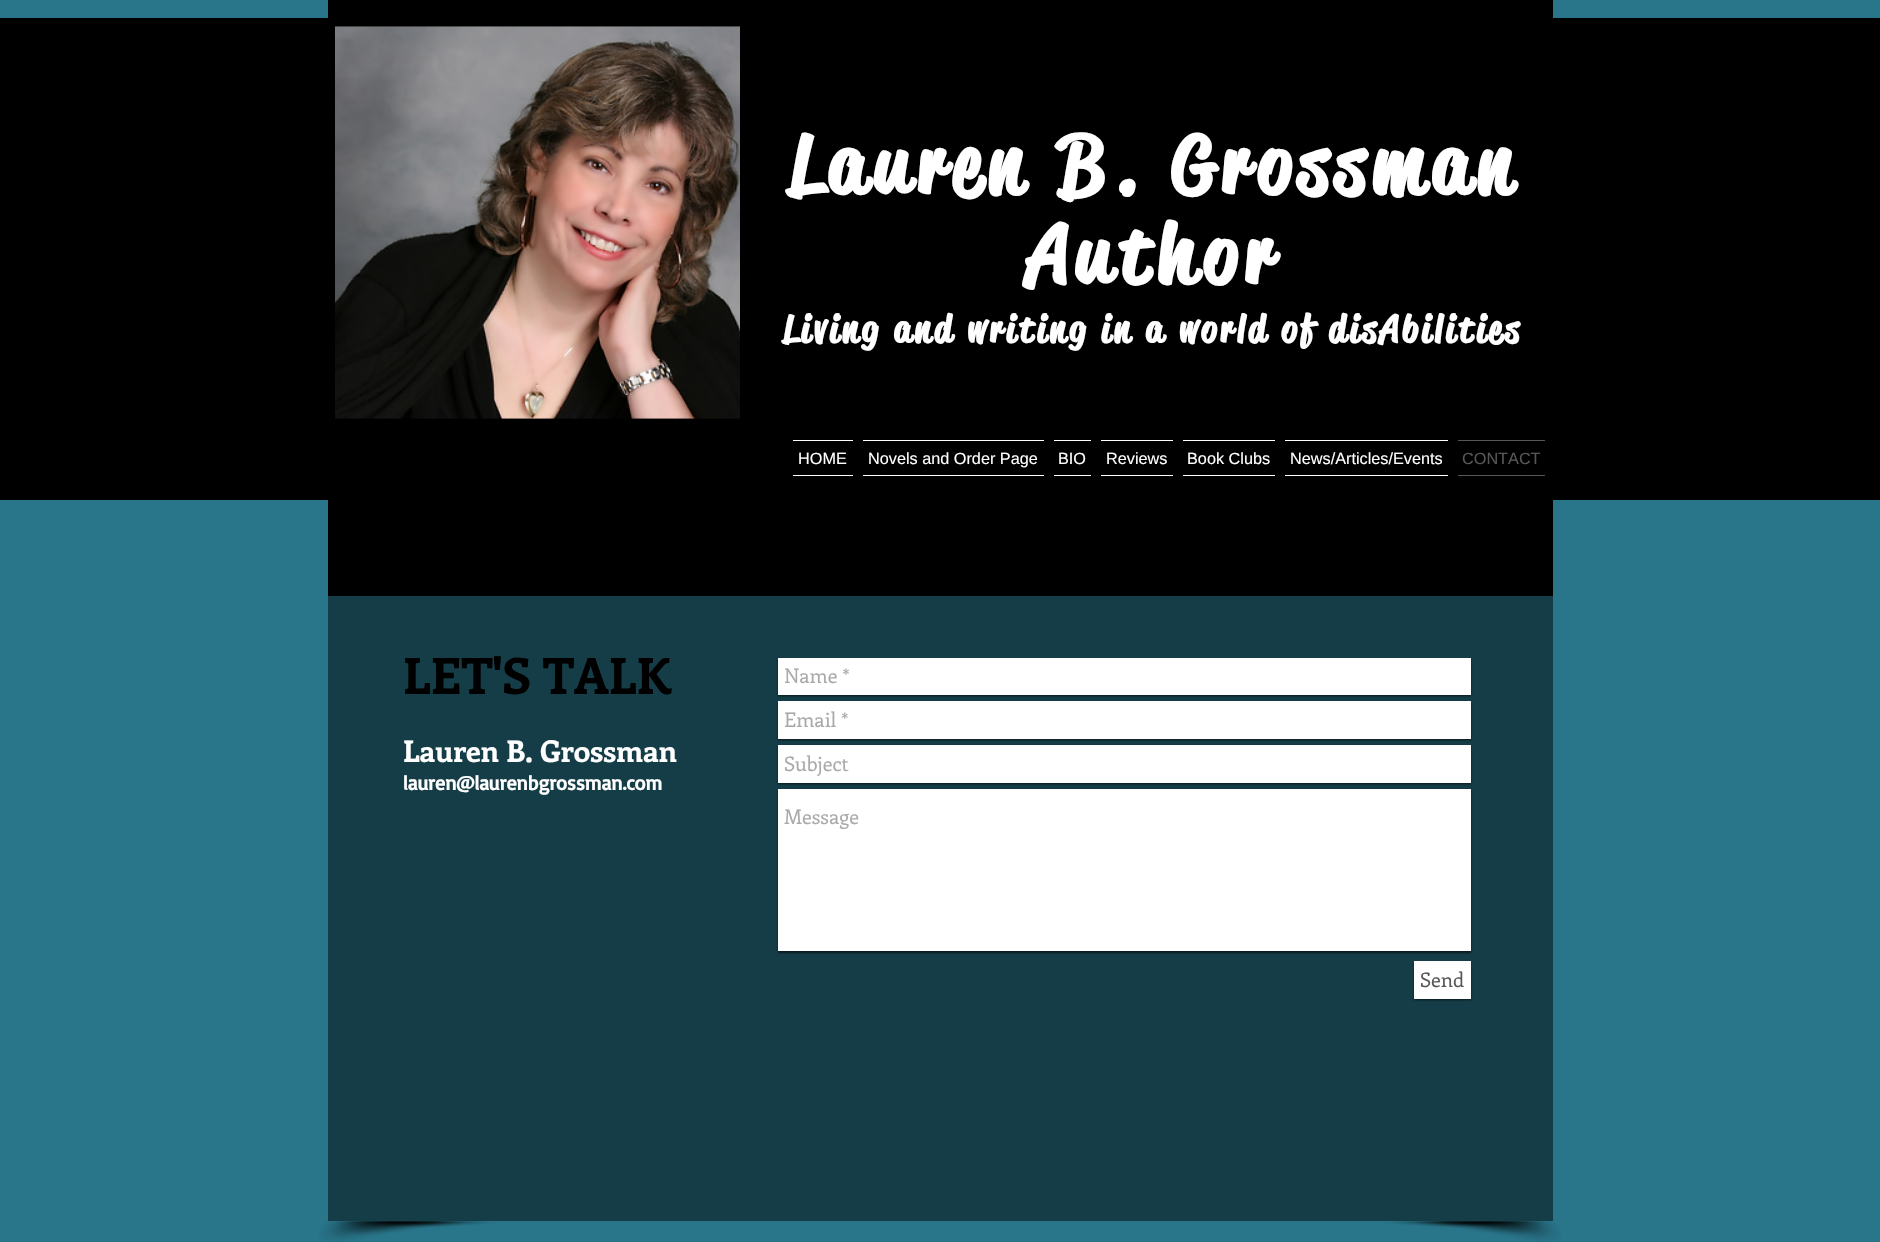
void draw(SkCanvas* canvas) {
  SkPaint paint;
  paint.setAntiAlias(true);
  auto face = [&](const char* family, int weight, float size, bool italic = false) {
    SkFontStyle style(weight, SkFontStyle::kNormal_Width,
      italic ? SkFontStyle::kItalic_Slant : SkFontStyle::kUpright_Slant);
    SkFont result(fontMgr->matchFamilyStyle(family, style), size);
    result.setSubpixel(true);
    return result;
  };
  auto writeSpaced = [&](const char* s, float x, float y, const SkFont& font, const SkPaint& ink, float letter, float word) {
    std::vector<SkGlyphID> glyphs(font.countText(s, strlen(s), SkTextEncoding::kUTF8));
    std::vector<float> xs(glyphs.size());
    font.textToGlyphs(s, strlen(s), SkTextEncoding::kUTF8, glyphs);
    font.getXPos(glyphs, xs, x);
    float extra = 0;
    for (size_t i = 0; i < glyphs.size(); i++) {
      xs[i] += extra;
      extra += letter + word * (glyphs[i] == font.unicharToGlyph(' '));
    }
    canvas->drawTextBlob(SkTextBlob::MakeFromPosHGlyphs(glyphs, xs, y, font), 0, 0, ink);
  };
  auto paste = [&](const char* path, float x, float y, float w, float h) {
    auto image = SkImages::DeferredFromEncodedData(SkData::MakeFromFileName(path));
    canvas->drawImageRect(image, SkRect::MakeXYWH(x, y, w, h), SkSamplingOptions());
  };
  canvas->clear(0xff29768b);
  paint.setColor(0xff000000);
  canvas->drawRect(SkRect::MakeXYWH(328, 0, 1225, 596), paint);
  canvas->drawRect(SkRect::MakeXYWH(0, 18, 1880, 482), paint);
  paste("img/1.png", 335, 26, 405, 393);
  {
    const struct { float x, y, w, h; SkColor color; } items[] = {
      {793, 440, 60, 1, 0xffffffff},
      {793, 475, 60, 1, 0xffffffff},
      {863, 440, 181, 1, 0xffffffff},
      {863, 475, 181, 1, 0xffffffff},
      {1054, 440, 37, 1, 0xffffffff},
      {1054, 475, 37, 1, 0xffffffff},
      {1101, 440, 72, 1, 0xffffffff},
      {1101, 475, 72, 1, 0xffffffff},
      {1183, 440, 92, 1, 0xffffffff},
      {1183, 475, 92, 1, 0xffffffff},
      {1285, 440, 163, 1, 0xffffffff},
      {1285, 475, 163, 1, 0xffffffff},
      {1458, 440, 87, 1, 0xff575757},
      {1458, 475, 87, 1, 0xff575757},
      {328, 596, 1225, 625, 0xff153d47},
    };
    for (auto [x, y, w, h, color] : items) {
      paint.setColor(color);
      canvas->drawRect(SkRect::MakeXYWH(x, y, w, h), paint);
    }
  }
  paste("img/2.png", 319, 1221, 177, 21);
  paste("img/3.png", 1384, 1221, 177, 21);
  paint.setColor(0x99000000);
  paint.setMaskFilter(SkMaskFilter::MakeBlur(kNormal_SkBlurStyle, 1));
  canvas->drawRect(SkRect::MakeXYWH(778, 659, 693, 37), paint);
  paint.setMaskFilter(nullptr);
  paint.setColor(0xffffffff);
  canvas->drawRect(SkRect::MakeXYWH(778, 658, 693, 37), paint);
  paint.setColor(0x99000000);
  paint.setMaskFilter(SkMaskFilter::MakeBlur(kNormal_SkBlurStyle, 1));
  canvas->drawRect(SkRect::MakeXYWH(778, 703, 693, 37), paint);
  paint.setMaskFilter(nullptr);
  paint.setColor(0xffffffff);
  canvas->drawRect(SkRect::MakeXYWH(778, 701, 693, 38), paint);
  paint.setColor(0x99000000);
  paint.setMaskFilter(SkMaskFilter::MakeBlur(kNormal_SkBlurStyle, 1));
  canvas->drawRect(SkRect::MakeXYWH(778, 746, 693, 38), paint);
  paint.setMaskFilter(nullptr);
  paint.setColor(0xffffffff);
  canvas->drawRect(SkRect::MakeXYWH(778, 745, 693, 38), paint);
  paint.setColor(0x99000000);
  paint.setMaskFilter(SkMaskFilter::MakeBlur(kNormal_SkBlurStyle, 1));
  canvas->drawRect(SkRect::MakeXYWH(778, 790, 693, 163), paint);
  paint.setMaskFilter(nullptr);
  paint.setColor(0xffffffff);
  canvas->drawRect(SkRect::MakeXYWH(778, 789, 693, 162), paint);
  paint.setColor(0x99000000);
  paint.setMaskFilter(SkMaskFilter::MakeBlur(kNormal_SkBlurStyle, 1));
  canvas->drawRect(SkRect::MakeXYWH(1414, 963, 57, 37), paint);
  paint.setMaskFilter(nullptr);
  paint.setColor(0xffffffff);
  canvas->drawRect(SkRect::MakeXYWH(1414, 961, 57, 38), paint);
  auto f0 = face("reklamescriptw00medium", 700, 81.25f);
  writeSpaced("Lauren B. Grossman", 787, 193, f0, paint, 8.1f, 0);
  writeSpaced("Author", 1026, 283, f0, paint, 8.1f, 0);
  auto f1 = face("reklamescriptw00medium", 700, 37.5f);
  writeSpaced("Living and writing in a world of disAbilities", 782, 342, f1, paint, 3.75f, 0);
  auto f2 = face("Liberation Sans", 400, 16.25f);
  {
    const struct { const char* s; float x, y; } items[] = {
      {"HOME", 798, 464},
      {"Novels and Order Page", 868, 464},
      {"BIO", 1058, 464},
      {"Reviews", 1106, 464},
      {"Book Clubs", 1187, 464},
      {"News/Articles/Events", 1290, 464},
    };
    for (auto [s, x, y] : items) {
      canvas->drawString(s, x, y, f2, paint);
    }
  }
  paint.setColor(0xff575757);
  canvas->drawString("CONTACT", 1462, 464, f2, paint);
  auto f3 = face("Enriqueta", 700, 50);
  paint.setColor(0xff000000);
  canvas->drawString("LET'S TALK", 403, 694, f3, paint);
  auto f4 = face("Enriqueta", 700, 30);
  paint.setColor(0xffffffff);
  canvas->drawString("Lauren B. Grossman", 403, 762, f4, paint);
  auto f5 = face("Basic", 700, 20);
  canvas->drawString("lauren@laurenbgrossman.com", 403, 790, f5, paint);
  auto f6 = face("Enriqueta", 400, 20);
  paint.setColor(0xffa9a9a9);
  {
    const struct { const char* s; float x, y; } items[] = {
      {"Name *", 784, 683},
      {"Email *", 784, 727},
      {"Subject", 784, 771},
      {"Message", 784, 824},
    };
    for (auto [s, x, y] : items) {
      canvas->drawString(s, x, y, f6, paint);
    }
  }
  paint.setColor(0xff575757);
  canvas->drawString("Send", 1420, 987, f6, paint);
}
